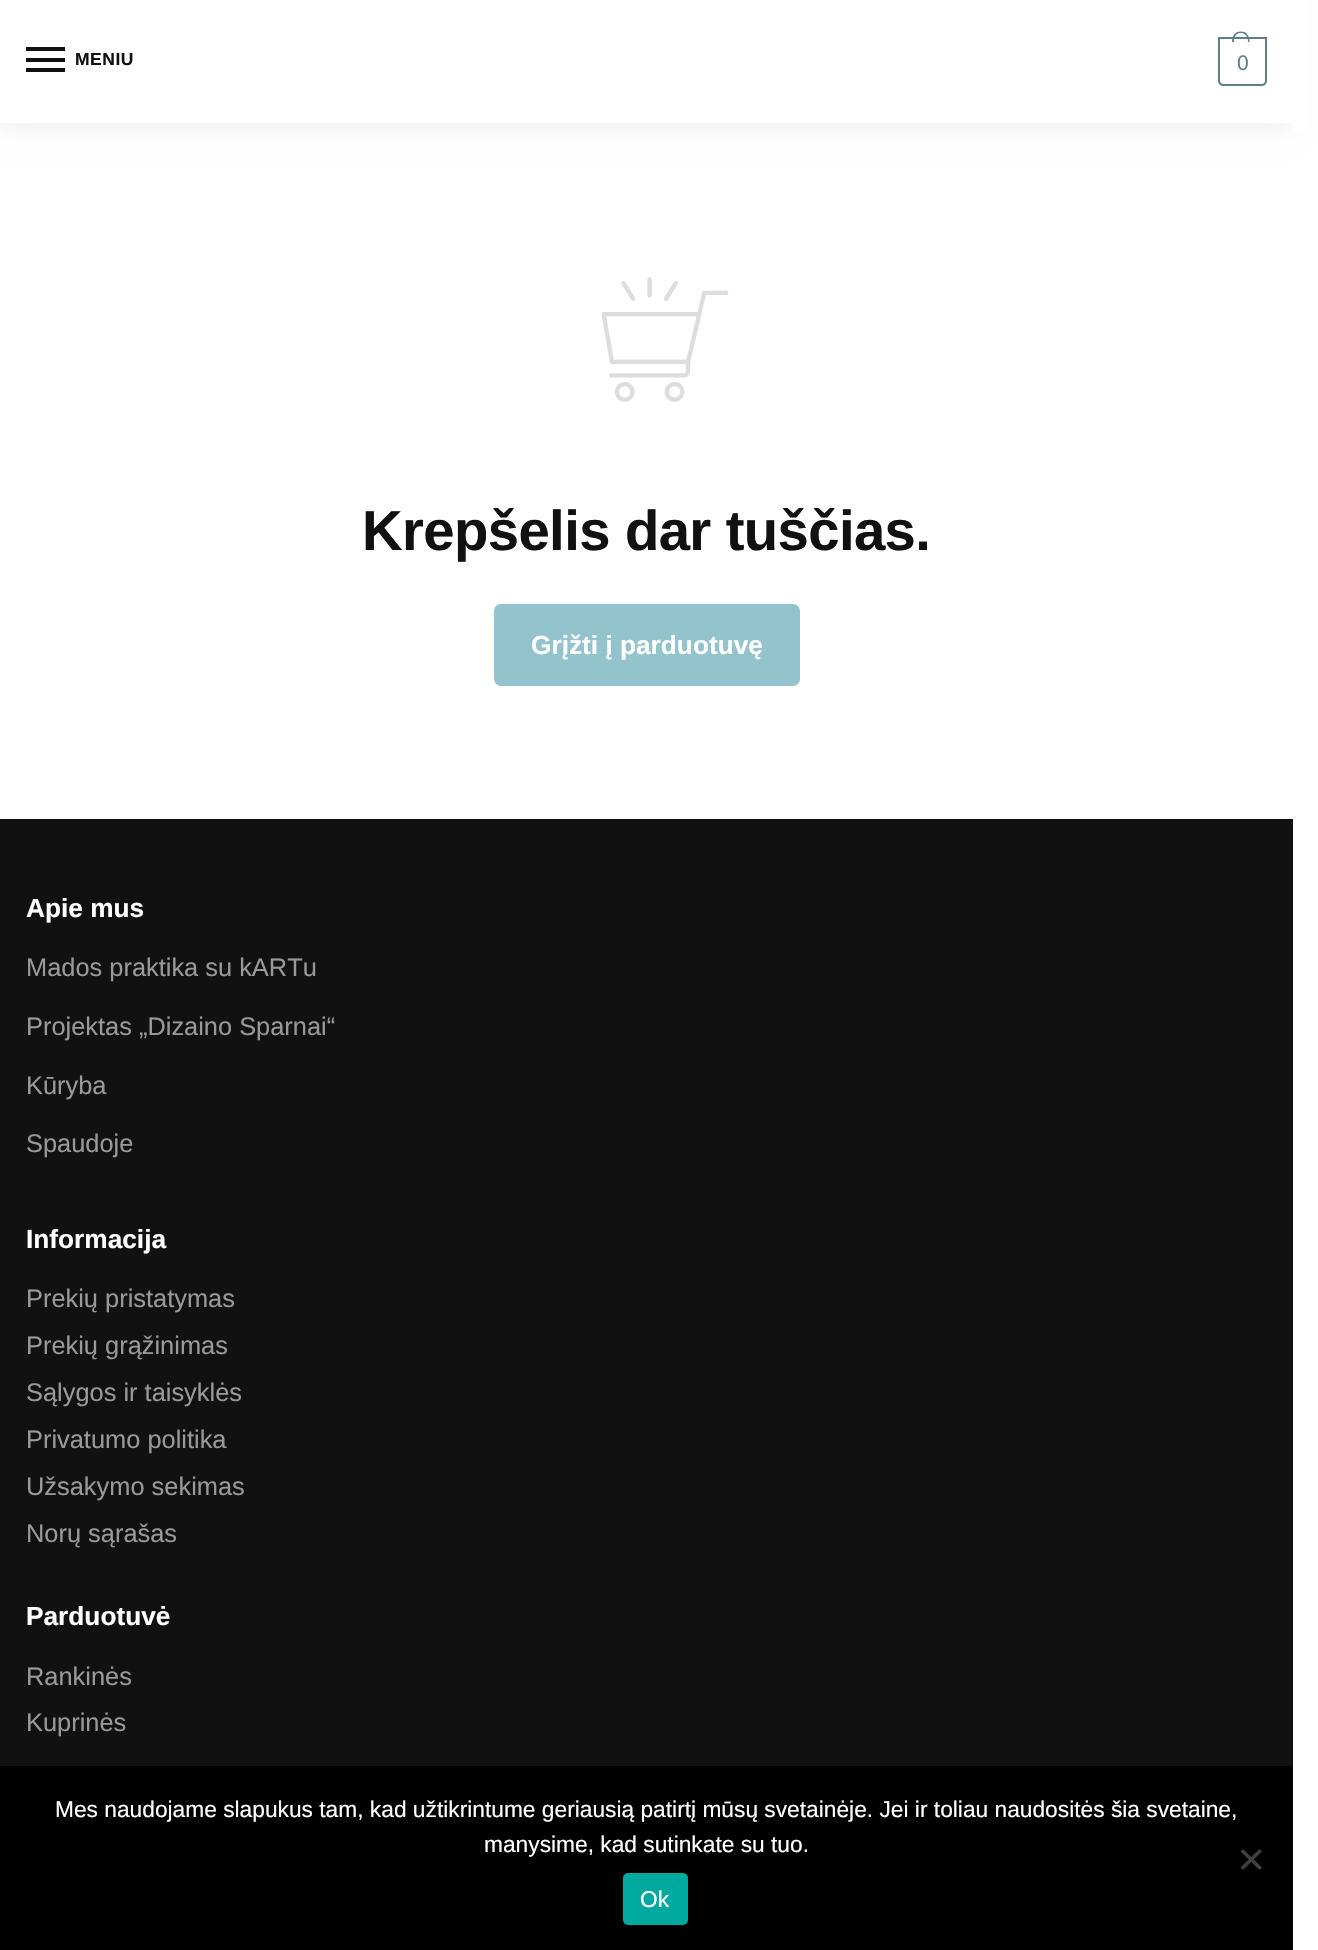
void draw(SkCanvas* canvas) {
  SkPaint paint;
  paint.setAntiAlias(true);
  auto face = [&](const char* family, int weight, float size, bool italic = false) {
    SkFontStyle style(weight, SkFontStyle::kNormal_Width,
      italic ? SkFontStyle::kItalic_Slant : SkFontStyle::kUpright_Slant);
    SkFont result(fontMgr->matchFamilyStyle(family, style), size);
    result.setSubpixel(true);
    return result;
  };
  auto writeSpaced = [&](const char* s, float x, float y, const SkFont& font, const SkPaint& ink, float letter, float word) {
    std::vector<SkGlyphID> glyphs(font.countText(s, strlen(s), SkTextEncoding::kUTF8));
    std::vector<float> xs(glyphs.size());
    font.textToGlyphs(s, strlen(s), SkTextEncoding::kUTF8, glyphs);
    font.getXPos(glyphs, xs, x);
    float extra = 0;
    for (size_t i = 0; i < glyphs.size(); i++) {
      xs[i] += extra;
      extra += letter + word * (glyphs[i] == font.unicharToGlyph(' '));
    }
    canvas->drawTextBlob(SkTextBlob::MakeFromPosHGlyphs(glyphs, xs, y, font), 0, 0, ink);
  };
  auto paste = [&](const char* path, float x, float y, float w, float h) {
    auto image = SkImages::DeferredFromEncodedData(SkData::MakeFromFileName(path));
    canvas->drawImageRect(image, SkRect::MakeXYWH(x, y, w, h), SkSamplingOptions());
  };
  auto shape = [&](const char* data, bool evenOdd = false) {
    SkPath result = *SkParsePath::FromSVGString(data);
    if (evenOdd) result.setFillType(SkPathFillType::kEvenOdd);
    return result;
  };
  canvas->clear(0xffffffff);
  paint.setColor(0x14000000);
  paint.setMaskFilter(SkMaskFilter::MakeBlur(kNormal_SkBlurStyle, 13));
  canvas->drawRect(SkRect::MakeXYWH(0, 2, 1293, 122), paint);
  paint.setMaskFilter(nullptr);
  {
    const struct { float x, y, w, h; SkColor color; } items[] = {
      {0, 0, 1293, 123, 0xffffffff},
      {26, 47, 39, 4, 0xff111111},
      {26, 58, 39, 4, 0xff111111},
      {26, 68, 39, 4, 0xff111111},
    };
    for (auto [x, y, w, h, color] : items) {
      paint.setColor(color);
      canvas->drawRect(SkRect::MakeXYWH(x, y, w, h), paint);
    }
  }
  paint.setStroke(true);
  paint.setStrokeWidth(2);
  paint.setColor(0xff5f7f84);
  canvas->drawPath(shape("M1219 38H1266V81C1266 83 1264 85 1262 85H1223C1221 85 1219 83 1219 81Z"), paint);
  paint.setStroke(false);
  canvas->drawPath(shape("M1241 31.5C1247 31.5 1249.5 36.5 1249.5 42H1232C1232 36.5 1234.5 31.5 1241 31.5ZM1241 33C1246 33 1248 37.5 1248 42H1234C1234 37.5 1235.5 33 1241 33Z", true), paint);
  paint.setColor(0xffffffff);
  canvas->drawRect(SkRect::MakeXYWH(1293, 0, 15, 132), paint);
  paste("img/1.png", 601, 277, 128, 125);
  paint.setColor(0xff93c4cd);
  canvas->drawRoundRect(SkRect::MakeXYWH(494, 604, 306, 82), 7, 7, paint);
  paint.setColor(0xff111111);
  canvas->drawRect(SkRect::MakeXYWH(0, 819, 1293, 947), paint);
  paint.setColor(0xff000000);
  canvas->drawRect(SkRect::MakeXYWH(0, 1766, 1293, 184), paint);
  paint.setColor(0xff404040);
  canvas->drawPath(shape("M1259.5 1849L1262 1851.5L1243 1870L1240.5 1867.5Z"), paint);
  canvas->drawPath(shape("M1240.5 1851.5L1243 1849L1262 1867.5L1259.5 1870Z"), paint);
  paint.setColor(0xff00a99d);
  canvas->drawRoundRect(SkRect::MakeXYWH(623, 1873, 65, 52), 5, 5, paint);
  auto f0 = face("Liberation Sans", 700, 17.5f);
  paint.setColor(0xff111111);
  writeSpaced("MENIU", 75, 65, f0, paint, 0.5f, 0);
  auto f1 = face("Liberation Sans", 400, 21);
  paint.setColor(0xff5f7f84);
  writeSpaced("0", 1237, 70, f1, paint, -1, 0);
  auto f2 = face("Liberation Sans", 700, 56.25f);
  paint.setColor(0xff111111);
  writeSpaced("Krepšelis dar tuščias.", 362, 550, f2, paint, -0.6f, 0);
  auto f3 = face("Liberation Sans", 700, 26.25f);
  paint.setColor(0xffffffff);
  canvas->drawString("Grįžti į parduotuvę", 531, 654, f3, paint);
  canvas->drawString("Apie mus", 26, 917, f3, paint);
  auto f4 = face("Liberation Sans", 400, 25.4f);
  paint.setColor(0xff999999);
  {
    const struct { const char* s; float x, y; } items[] = {
      {"Mados praktika su kARTu", 26, 976},
      {"Projektas „Dizaino Sparnai“", 26, 1035},
      {"Kūryba", 26, 1094},
      {"Spaudoje", 26, 1152},
    };
    for (auto [s, x, y] : items) {
      canvas->drawString(s, x, y, f4, paint);
    }
  }
  paint.setColor(0xffffffff);
  canvas->drawString("Informacija", 26, 1248, f3, paint);
  paint.setColor(0xff999999);
  {
    const struct { const char* s; float x, y; } items[] = {
      {"Prekių pristatymas", 26, 1307},
      {"Prekių grąžinimas", 26, 1354},
      {"Sąlygos ir taisyklės", 26, 1401},
      {"Privatumo politika", 26, 1448},
      {"Užsakymo sekimas", 26, 1495},
      {"Norų sąrašas", 26, 1542},
    };
    for (auto [s, x, y] : items) {
      canvas->drawString(s, x, y, f4, paint);
    }
  }
  paint.setColor(0xffffffff);
  canvas->drawString("Parduotuvė", 26, 1625, f3, paint);
  paint.setColor(0xff999999);
  canvas->drawString("Rankinės", 26, 1685, f4, paint);
  canvas->drawString("Kuprinės", 26, 1731, f4, paint);
  auto f5 = face("Liberation Sans", 400, 22.75f);
  paint.setColor(0xffffffff);
  {
    const struct { const char* s; float x, y; } items[] = {
      {"Mes naudojame slapukus tam, kad užtikrintume geriausią patirtį mūsų svetainėje. Jei ir toliau naudositės šia svetaine,", 55, 1817},
      {"manysime, kad sutinkate su tuo.", 484, 1852},
      {"Ok", 640, 1907},
    };
    for (auto [s, x, y] : items) {
      canvas->drawString(s, x, y, f5, paint);
    }
  }
}
